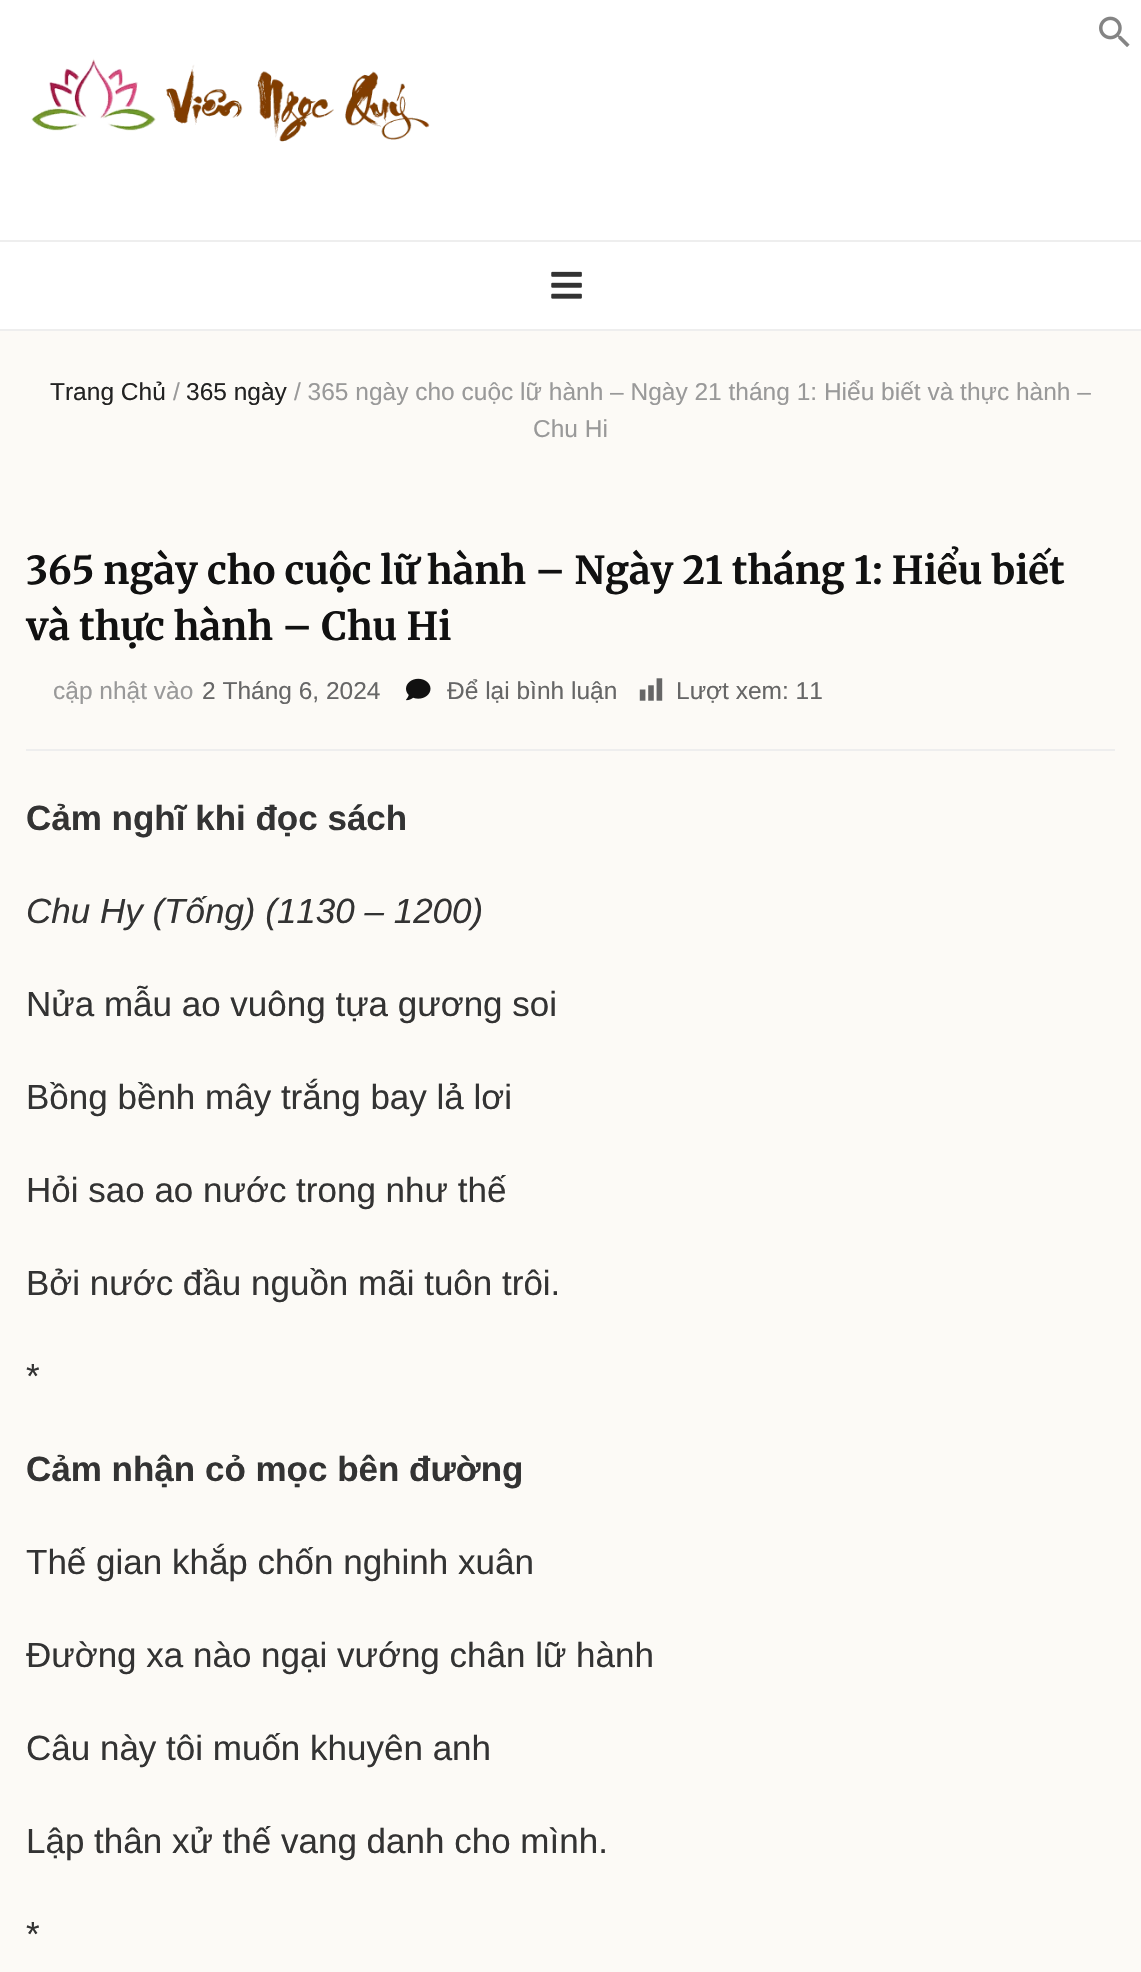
void draw(SkCanvas* canvas) {
  SkPaint paint;
  paint.setAntiAlias(true);
  auto face = [&](const char* family, int weight, float size, bool italic = false) {
    SkFontStyle style(weight, SkFontStyle::kNormal_Width,
      italic ? SkFontStyle::kItalic_Slant : SkFontStyle::kUpright_Slant);
    SkFont result(fontMgr->matchFamilyStyle(family, style), size);
    result.setSubpixel(true);
    return result;
  };
  auto paste = [&](const char* path, float x, float y, float w, float h) {
    auto image = SkImages::DeferredFromEncodedData(SkData::MakeFromFileName(path));
    canvas->drawImageRect(image, SkRect::MakeXYWH(x, y, w, h), SkSamplingOptions());
  };
  canvas->clear(0xffffffff);
  paste("img/1.png", 1099, 16, 31, 31);
  paste("img/2.png", 31, 58, 399, 84);
  paint.setColor(0xffeeeeee);
  canvas->drawRect(SkRect::MakeXYWH(0, 240, 1141, 2), paint);
  canvas->drawRect(SkRect::MakeXYWH(0, 329, 1141, 2), paint);
  paste("img/3.png", 551, 271, 31, 28);
  paint.setColor(0xfffcfaf6);
  canvas->drawRect(SkRect::MakeXYWH(0, 331, 1141, 1641), paint);
  paint.setColor(0xffeeeeee);
  canvas->drawRect(SkRect::MakeXYWH(26, 749, 1089, 2), paint);
  paste("img/4.png", 406, 678, 25, 23);
  paste("img/5.png", 639, 678, 24, 23);
  auto f0 = face("Liberation Sans", 400, 24.5f);
  paint.setColor(0xff222222);
  canvas->drawString("Trang Chủ", 50, 400, f0, paint);
  paint.setColor(0xff999999);
  canvas->drawString("/", 173, 400, f0, paint);
  paint.setColor(0xff222222);
  canvas->drawString("365 ngày", 186, 400, f0, paint);
  paint.setColor(0xff999999);
  canvas->drawString("/ 365 ngày cho cuộc lữ hành – Ngày 21 tháng 1: Hiểu biết và thực hành –", 294, 400, f0, paint);
  canvas->drawString("Chu Hi", 533, 437, f0, paint);
  auto f1 = face("Merriweather", 700, 38.5f);
  paint.setColor(0xff111111);
  canvas->drawString("365 ngày cho cuộc lữ hành – Ngày 21 tháng 1: Hiểu biết", 26, 584, f1, paint);
  canvas->drawString("và thực hành – Chu Hi", 26, 640, f1, paint);
  paint.setColor(0xff999999);
  canvas->drawString("cập nhật vào", 53, 699, f0, paint);
  paint.setColor(0xff666666);
  {
    const struct { const char* s; float x, y; } items[] = {
      {"2 Tháng 6, 2024", 202, 699},
      {"Để lại bình luận", 447, 699},
      {"Lượt xem: 11", 676, 699},
    };
    for (auto [s, x, y] : items) {
      canvas->drawString(s, x, y, f0, paint);
    }
  }
  auto f2 = face("Liberation Sans", 700, 35);
  paint.setColor(0xff333333);
  canvas->drawString("Cảm nghĩ khi đọc sách", 26, 830, f2, paint);
  auto f3 = face("Liberation Sans", 400, 35, true);
  canvas->drawString("Chu Hy (Tống) (1130 – 1200)", 26, 923, f3, paint);
  auto f4 = face("Liberation Sans", 400, 35);
  {
    const struct { const char* s; float x, y; } items[] = {
      {"Nửa mẫu ao vuông tựa gương soi", 26, 1016},
      {"Bồng bềnh mây trắng bay lả lơi", 26, 1109},
      {"Hỏi sao ao nước trong như thế", 26, 1202},
      {"Bởi nước đầu nguồn mãi tuôn trôi.", 26, 1295},
      {"*", 26, 1388},
    };
    for (auto [s, x, y] : items) {
      canvas->drawString(s, x, y, f4, paint);
    }
  }
  canvas->drawString("Cảm nhận cỏ mọc bên đường", 26, 1481, f2, paint);
  {
    const struct { const char* s; float x, y; } items[] = {
      {"Thế gian khắp chốn nghinh xuân", 26, 1574},
      {"Đường xa nào ngại vướng chân lữ hành", 26, 1667},
      {"Câu này tôi muốn khuyên anh", 26, 1760},
      {"Lập thân xử thế vang danh cho mình.", 26, 1853},
      {"*", 26, 1946},
    };
    for (auto [s, x, y] : items) {
      canvas->drawString(s, x, y, f4, paint);
    }
  }
}
